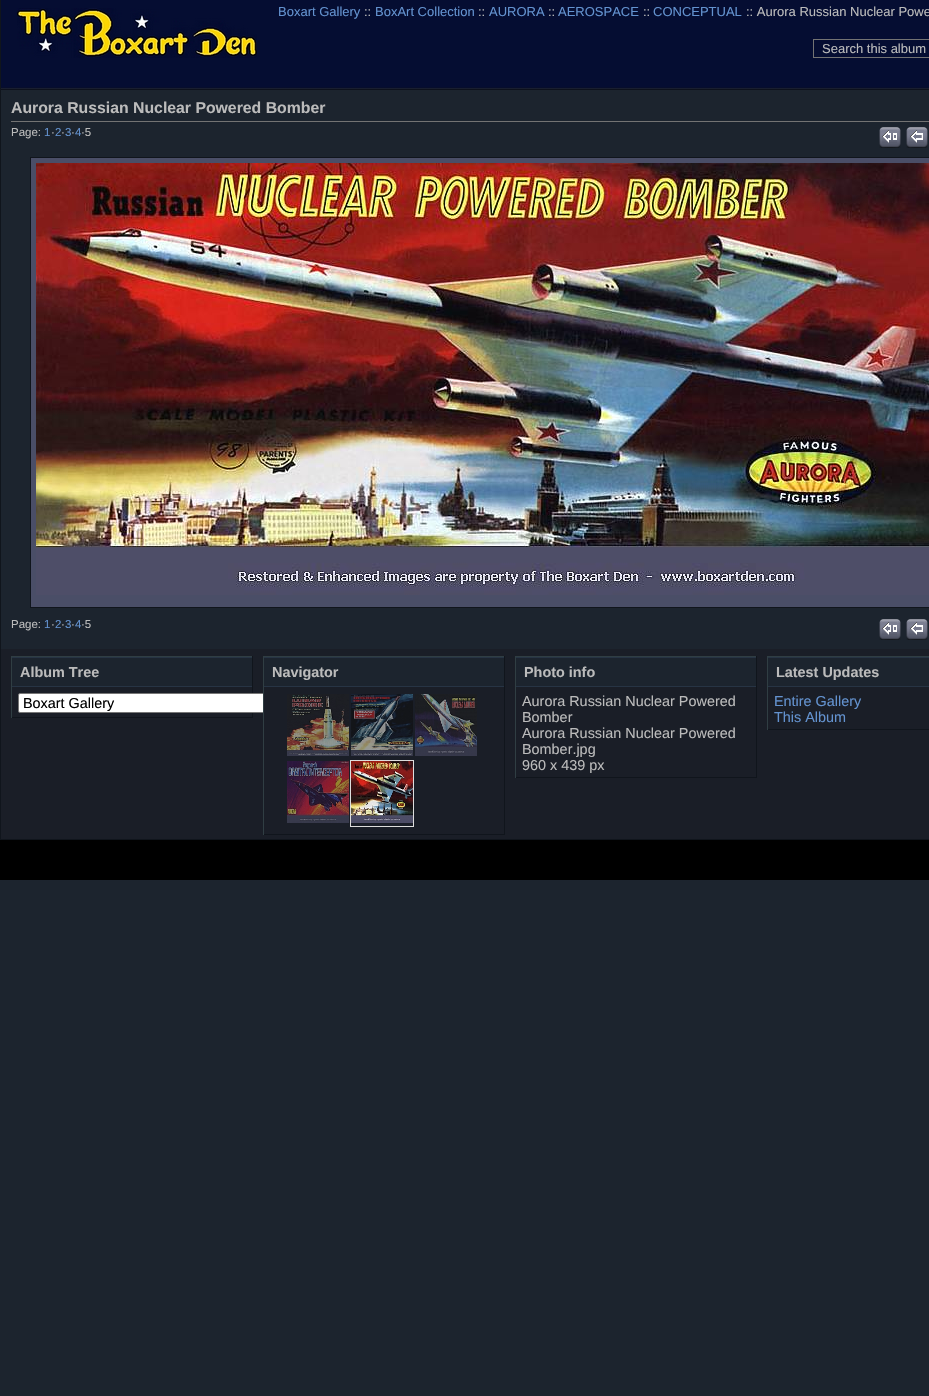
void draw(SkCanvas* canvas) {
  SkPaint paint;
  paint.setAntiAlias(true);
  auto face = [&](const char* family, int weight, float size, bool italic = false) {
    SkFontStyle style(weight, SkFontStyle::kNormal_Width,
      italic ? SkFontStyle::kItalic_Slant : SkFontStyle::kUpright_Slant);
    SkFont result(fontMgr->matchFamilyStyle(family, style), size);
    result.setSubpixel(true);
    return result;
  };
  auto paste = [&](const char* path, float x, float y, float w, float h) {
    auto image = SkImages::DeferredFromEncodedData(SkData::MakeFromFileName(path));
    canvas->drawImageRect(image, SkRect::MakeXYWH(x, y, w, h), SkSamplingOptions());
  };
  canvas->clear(0xff1c242e);
  paste("img/1.png", 1, 0, 928, 90);
  paste("img/2.png", 17, 8, 240, 50);
  paint.setStroke(true);
  paint.setStrokeWidth(1);
  paint.setColor(0xff737373);
  canvas->drawRect(SkRect::MakeXYWH(813.5f, 39.5f, 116, 18), paint);
  paint.setStroke(false);
  paint.setColor(0xff10151c);
  canvas->drawRect(SkRect::MakeXYWH(0, 0, 1, 649), paint);
  paint.setColor(0xff737373);
  canvas->drawRect(SkRect::MakeXYWH(11, 121, 918, 1), paint);
  paste("img/3.png", 879, 127, 22, 21);
  paste("img/4.png", 906, 127, 22, 21);
  paint.setColor(0xff4a4e67);
  canvas->drawRect(SkRect::MakeXYWH(30.5f, 157.5f, 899, 450), paint);
  paint.setStroke(true);
  paint.setColor(0xff10151c);
  canvas->drawRect(SkRect::MakeXYWH(30.5f, 157.5f, 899, 450), paint);
  paste("img/5.png", 36, 163, 893, 432);
  paste("img/3.png", 879, 619, 22, 21);
  paste("img/4.png", 906, 619, 22, 21);
  paint.setStroke(false);
  {
    const struct { float x, y, w, h; SkColor color; } items[] = {
      {1, 649, 928, 190, 0xff1a1e27},
      {0, 839, 929, 1, 0xff10151c},
      {0, 649, 1, 191, 0xff10151c},
      {11, 656, 242, 1, 0xff303e43},
      {252, 656, 1, 62, 0xff10151c},
      {11, 717, 242, 1, 0xff10151c},
      {11, 656, 1, 62, 0xff303e43},
      {12, 658, 240, 28, 0xff1c242e},
      {12, 657, 240, 1, 0xff273444},
      {12, 686, 240, 1, 0xff273444},
    };
    for (auto [x, y, w, h, color] : items) {
      paint.setColor(color);
      canvas->drawRect(SkRect::MakeXYWH(x, y, w, h), paint);
    }
  }
  paint.setColor(0xffffffff);
  canvas->drawRoundRect(SkRect::MakeXYWH(18.5f, 693.5f, 345, 19), 1.5f, 1.5f, paint);
  paint.setStroke(true);
  paint.setColor(0xff767676);
  canvas->drawRoundRect(SkRect::MakeXYWH(18.5f, 693.5f, 345, 19), 1.5f, 1.5f, paint);
  paint.setStroke(false);
  {
    const struct { float x, y, w, h; SkColor color; } items[] = {
      {264, 693, 100, 20, 0xff1a1e27},
      {263, 656, 242, 1, 0xff303e43},
      {504, 656, 1, 179, 0xff10151c},
      {263, 834, 242, 1, 0xff10151c},
      {263, 656, 1, 179, 0xff303e43},
      {264, 658, 240, 28, 0xff1c242e},
      {264, 657, 240, 1, 0xff273444},
      {264, 686, 240, 1, 0xff273444},
    };
    for (auto [x, y, w, h, color] : items) {
      paint.setColor(color);
      canvas->drawRect(SkRect::MakeXYWH(x, y, w, h), paint);
    }
  }
  paste("img/6.png", 287, 694, 62, 62);
  paste("img/7.png", 351, 694, 62, 62);
  paste("img/8.png", 415, 694, 62, 62);
  paste("img/9.png", 287, 761, 62, 62);
  paint.setStroke(true);
  paint.setColor(0xffdddddd);
  canvas->drawRect(SkRect::MakeXYWH(350.5f, 760.5f, 63, 66), paint);
  paste("img/10.png", 351, 761, 62, 62);
  paint.setStroke(false);
  {
    const struct { float x, y, w, h; SkColor color; } items[] = {
      {515, 656, 242, 1, 0xff303e43},
      {756, 656, 1, 122, 0xff10151c},
      {515, 777, 242, 1, 0xff10151c},
      {515, 656, 1, 122, 0xff303e43},
      {516, 658, 240, 28, 0xff1c242e},
      {516, 657, 240, 1, 0xff273444},
      {516, 686, 240, 1, 0xff273444},
      {767, 656, 162, 1, 0xff303e43},
      {767, 729, 162, 1, 0xff10151c},
      {767, 656, 1, 74, 0xff303e43},
      {768, 658, 161, 28, 0xff1c242e},
      {768, 657, 161, 1, 0xff273444},
      {768, 686, 161, 1, 0xff273444},
      {0, 840, 929, 40, 0xff000000},
    };
    for (auto [x, y, w, h, color] : items) {
      paint.setColor(color);
      canvas->drawRect(SkRect::MakeXYWH(x, y, w, h), paint);
    }
  }
  auto f0 = face("Liberation Sans", 400, 13);
  paint.setColor(0xff6392cf);
  canvas->drawString("Boxart Gallery", 278, 16, f0, paint);
  paint.setColor(0xffbbbbbb);
  canvas->drawString("::", 364, 16, f0, paint);
  paint.setColor(0xff6392cf);
  canvas->drawString("BoxArt Collection", 375, 16, f0, paint);
  paint.setColor(0xffbbbbbb);
  canvas->drawString("::", 478, 16, f0, paint);
  paint.setColor(0xff6392cf);
  canvas->drawString("AURORA", 489, 16, f0, paint);
  paint.setColor(0xffbbbbbb);
  canvas->drawString("::", 548, 16, f0, paint);
  paint.setColor(0xff6392cf);
  canvas->drawString("AEROSPACE", 558, 16, f0, paint);
  paint.setColor(0xffbbbbbb);
  canvas->drawString("::", 643, 16, f0, paint);
  paint.setColor(0xff6392cf);
  canvas->drawString("CONCEPTUAL", 653, 16, f0, paint);
  paint.setColor(0xffbbbbbb);
  canvas->drawString(":: Aurora Russian Nuclear Powe", 746, 16, f0, paint);
  canvas->drawString("Search this album", 822, 53, f0, paint);
  auto f1 = face("Liberation Sans", 700, 15.8f);
  canvas->drawString("Aurora Russian Nuclear Powered Bomber", 11, 113, f1, paint);
  auto f2 = face("Liberation Sans", 400, 11.5f);
  canvas->drawString("Page:", 11, 136, f2, paint);
  paint.setColor(0xff6392cf);
  canvas->drawString("1", 44, 136, f2, paint);
  paint.setColor(0xffbbbbbb);
  canvas->drawString("·", 51, 136, f2, paint);
  paint.setColor(0xff6392cf);
  canvas->drawString("2", 55, 136, f2, paint);
  paint.setColor(0xffbbbbbb);
  canvas->drawString("·", 61, 136, f2, paint);
  paint.setColor(0xff6392cf);
  canvas->drawString("3", 65, 136, f2, paint);
  paint.setColor(0xffbbbbbb);
  canvas->drawString("·", 71, 136, f2, paint);
  paint.setColor(0xff6392cf);
  canvas->drawString("4", 75, 136, f2, paint);
  paint.setColor(0xffbbbbbb);
  canvas->drawString("·5", 81, 136, f2, paint);
  canvas->drawString("Page:", 11, 628, f2, paint);
  paint.setColor(0xff6392cf);
  canvas->drawString("1", 44, 628, f2, paint);
  paint.setColor(0xffbbbbbb);
  canvas->drawString("·", 51, 628, f2, paint);
  paint.setColor(0xff6392cf);
  canvas->drawString("2", 55, 628, f2, paint);
  paint.setColor(0xffbbbbbb);
  canvas->drawString("·", 61, 628, f2, paint);
  paint.setColor(0xff6392cf);
  canvas->drawString("3", 65, 628, f2, paint);
  paint.setColor(0xffbbbbbb);
  canvas->drawString("·", 71, 628, f2, paint);
  paint.setColor(0xff6392cf);
  canvas->drawString("4", 75, 628, f2, paint);
  paint.setColor(0xffbbbbbb);
  canvas->drawString("·5", 81, 628, f2, paint);
  auto f3 = face("Liberation Sans", 700, 14.4f);
  canvas->drawString("Album Tree", 20, 677, f3, paint);
  auto f4 = face("Liberation Sans", 400, 14.4f);
  paint.setColor(0xff000000);
  canvas->drawString("Boxart Gallery", 23, 708, f4, paint);
  paint.setColor(0xffbbbbbb);
  canvas->drawString("Navigator", 272, 677, f3, paint);
  canvas->drawString("Photo info", 524, 677, f3, paint);
  {
    const struct { const char* s; float x, y; } items[] = {
      {"Aurora Russian Nuclear Powered", 522, 706},
      {"Bomber", 522, 722},
      {"Aurora Russian Nuclear Powered", 522, 738},
      {"Bomber.jpg", 522, 754},
      {"960 x 439 px", 522, 770},
    };
    for (auto [s, x, y] : items) {
      canvas->drawString(s, x, y, f4, paint);
    }
  }
  canvas->drawString("Latest Updates", 776, 677, f3, paint);
  paint.setColor(0xff6392cf);
  canvas->drawString("Entire Gallery", 774, 706, f4, paint);
  canvas->drawString("This Album", 774, 722, f4, paint);
}
